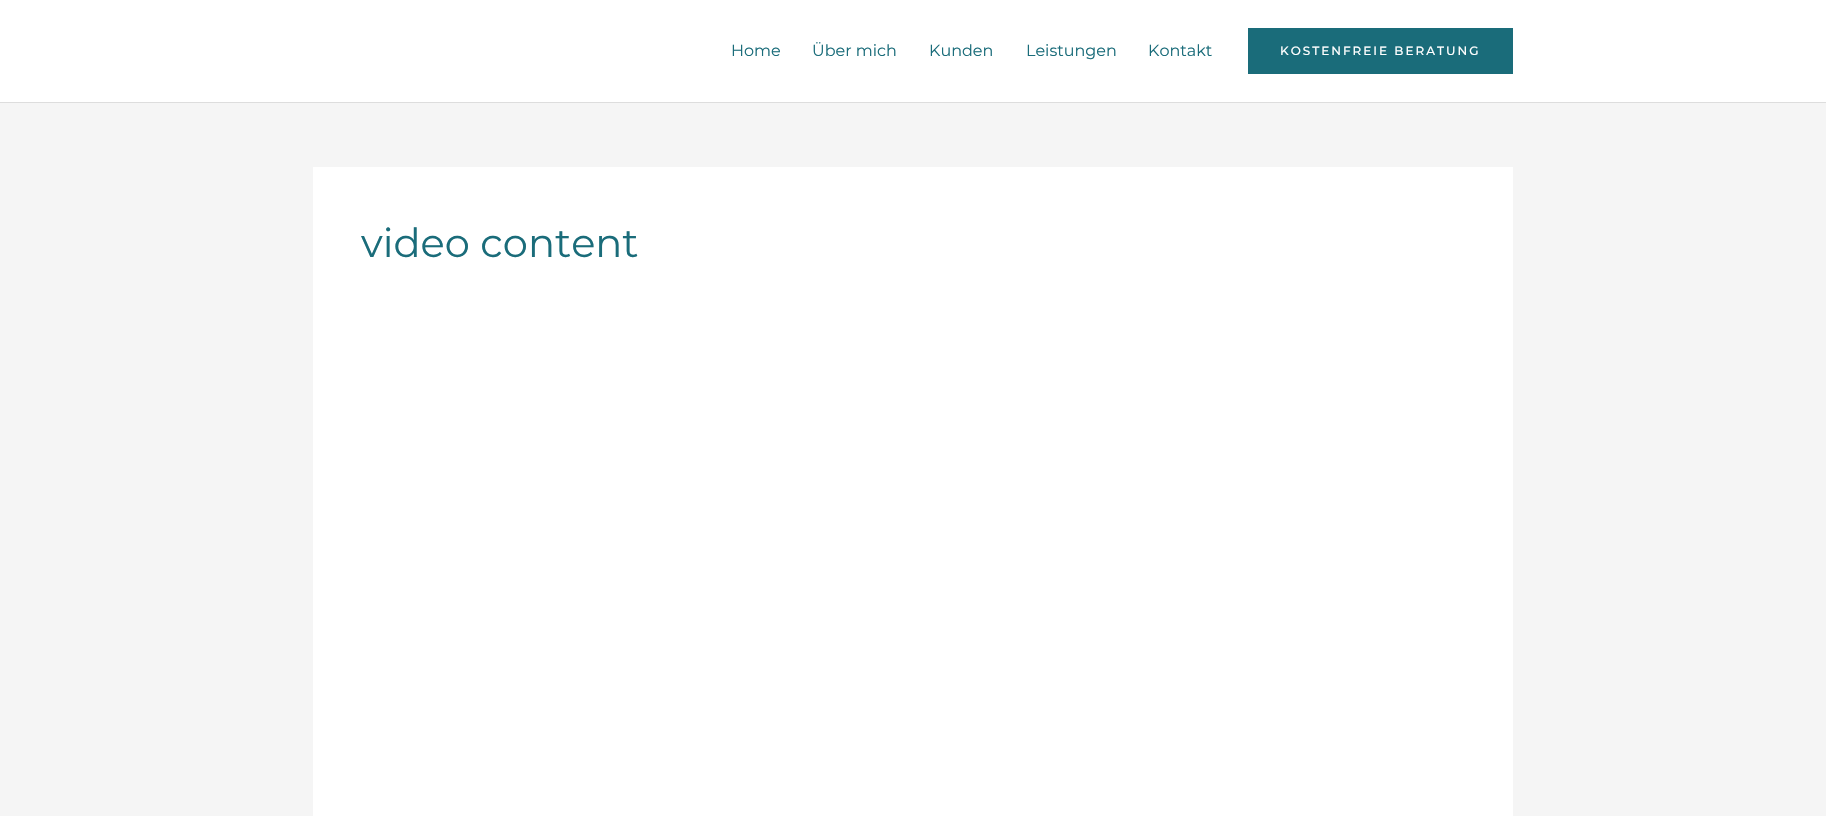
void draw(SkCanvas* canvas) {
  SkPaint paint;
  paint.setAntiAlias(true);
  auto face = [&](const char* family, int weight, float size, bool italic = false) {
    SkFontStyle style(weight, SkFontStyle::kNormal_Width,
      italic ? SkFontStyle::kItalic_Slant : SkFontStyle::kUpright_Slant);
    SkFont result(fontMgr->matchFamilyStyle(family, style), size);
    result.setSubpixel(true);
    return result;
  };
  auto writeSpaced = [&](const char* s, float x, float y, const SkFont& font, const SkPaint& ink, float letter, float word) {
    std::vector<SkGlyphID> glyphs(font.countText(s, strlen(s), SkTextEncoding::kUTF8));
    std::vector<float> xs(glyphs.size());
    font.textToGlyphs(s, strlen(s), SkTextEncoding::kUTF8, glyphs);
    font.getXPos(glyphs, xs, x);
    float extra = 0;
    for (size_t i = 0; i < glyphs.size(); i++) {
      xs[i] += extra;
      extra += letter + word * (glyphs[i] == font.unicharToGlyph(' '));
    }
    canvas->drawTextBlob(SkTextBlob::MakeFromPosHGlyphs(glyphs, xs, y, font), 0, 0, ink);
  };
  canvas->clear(0xfff5f5f5);
  {
    const struct { float x, y, w, h; SkColor color; } items[] = {
      {0, 0, 1826, 102, 0xffffffff},
      {0, 102, 1826, 1, 0xffdddddd},
      {1248, 28, 265, 46, 0xff1a6c7a},
      {313, 167, 1200, 649, 0xffffffff},
    };
    for (auto [x, y, w, h, color] : items) {
      paint.setColor(color);
      canvas->drawRect(SkRect::MakeXYWH(x, y, w, h), paint);
    }
  }
  auto f0 = face("Montserrat", 400, 16);
  paint.setColor(0xff1a6c7a);
  {
    const struct { const char* s; float x, y; } items[] = {
      {"Home", 731, 56},
      {"Über mich", 812, 56},
      {"Kunden", 929, 56},
      {"Leistungen", 1026, 56},
      {"Kontakt", 1148, 56},
    };
    for (auto [s, x, y] : items) {
      canvas->drawString(s, x, y, f0, paint);
    }
  }
  auto f1 = face("Montserrat", 500, 12);
  paint.setColor(0xffffffff);
  writeSpaced("KOSTENFREIE BERATUNG", 1280, 55, f1, paint, 2, 0);
  auto f2 = face("Montserrat", 400, 40);
  paint.setColor(0xff1a6c7a);
  canvas->drawString("video content", 361, 257, f2, paint);
}
